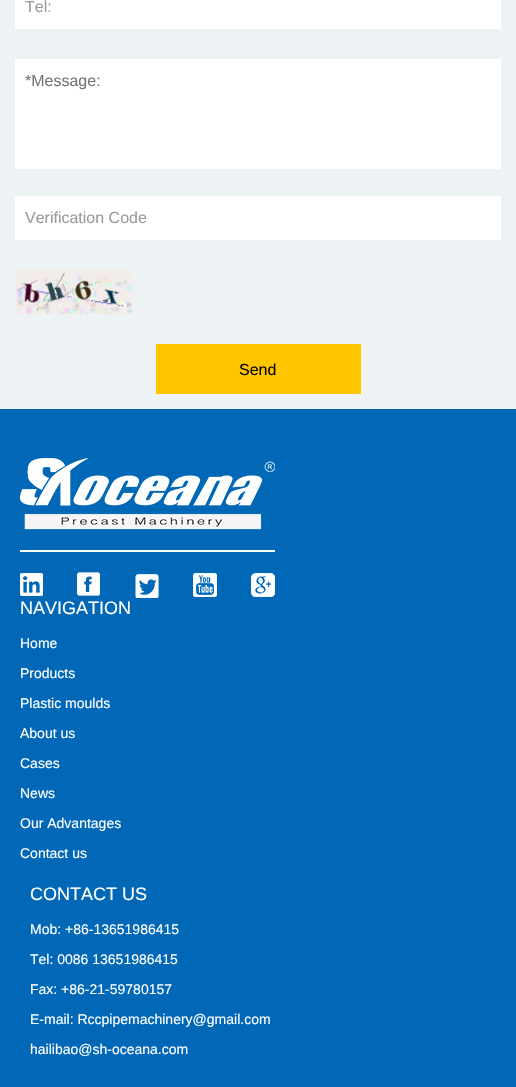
void draw(SkCanvas* canvas) {
  SkPaint paint;
  paint.setAntiAlias(true);
  auto face = [&](const char* family, int weight, float size, bool italic = false) {
    SkFontStyle style(weight, SkFontStyle::kNormal_Width,
      italic ? SkFontStyle::kItalic_Slant : SkFontStyle::kUpright_Slant);
    SkFont result(fontMgr->matchFamilyStyle(family, style), size);
    result.setSubpixel(true);
    return result;
  };
  auto paste = [&](const char* path, float x, float y, float w, float h) {
    auto image = SkImages::DeferredFromEncodedData(SkData::MakeFromFileName(path));
    canvas->drawImageRect(image, SkRect::MakeXYWH(x, y, w, h), SkSamplingOptions());
  };
  canvas->clear(0xff0168b7);
  {
    const struct { float x, y, w, h; SkColor color; } items[] = {
      {0, 0, 516, 409, 0xffedf2f5},
      {15, 0, 486, 29, 0xffffffff},
      {15, 59, 486, 110, 0xffffffff},
      {15, 196, 486, 44, 0xffffffff},
    };
    for (auto [x, y, w, h, color] : items) {
      paint.setColor(color);
      canvas->drawRect(SkRect::MakeXYWH(x, y, w, h), paint);
    }
  }
  paste("img/1.png", 15, 270, 117, 44);
  paint.setColor(0xffffc600);
  canvas->drawRect(SkRect::MakeXYWH(156, 344, 205, 50), paint);
  paste("img/2.png", 20, 458, 255, 72);
  paint.setColor(0xffffffff);
  canvas->drawRect(SkRect::MakeXYWH(20, 550, 255, 2), paint);
  paste("img/3.png", 20, 572, 255, 26);
  auto f0 = face("Liberation Sans", 400, 16);
  paint.setColor(0xff999999);
  canvas->drawString("Tel:", 25, 12, f0, paint);
  paint.setColor(0xff757575);
  canvas->drawString("*Message:", 25, 86, f0, paint);
  paint.setColor(0xff999999);
  canvas->drawString("Verification Code", 25, 223, f0, paint);
  paint.setColor(0xff000000);
  canvas->drawString("Send", 239, 375, f0, paint);
  auto f1 = face("Liberation Sans", 400, 18);
  paint.setColor(0xffffffff);
  canvas->drawString("NAVIGATION", 20, 614, f1, paint);
  auto f2 = face("Liberation Sans", 400, 14);
  {
    const struct { const char* s; float x, y; } items[] = {
      {"Home", 20, 648},
      {"Products", 20, 678},
      {"Plastic moulds", 20, 708},
      {"About us", 20, 738},
      {"Cases", 20, 768},
      {"News", 20, 798},
      {"Our Advantages", 20, 828},
      {"Contact us", 20, 858},
    };
    for (auto [s, x, y] : items) {
      canvas->drawString(s, x, y, f2, paint);
    }
  }
  canvas->drawString("CONTACT US", 30, 900, f1, paint);
  {
    const struct { const char* s; float x, y; } items[] = {
      {"Mob: +86-13651986415", 30, 934},
      {"Tel: 0086 13651986415", 30, 964},
      {"Fax: +86-21-59780157", 30, 994},
      {"E-mail: Rccpipemachinery@gmail.com", 30, 1024},
      {"hailibao@sh-oceana.com", 30, 1054},
    };
    for (auto [s, x, y] : items) {
      canvas->drawString(s, x, y, f2, paint);
    }
  }
}
